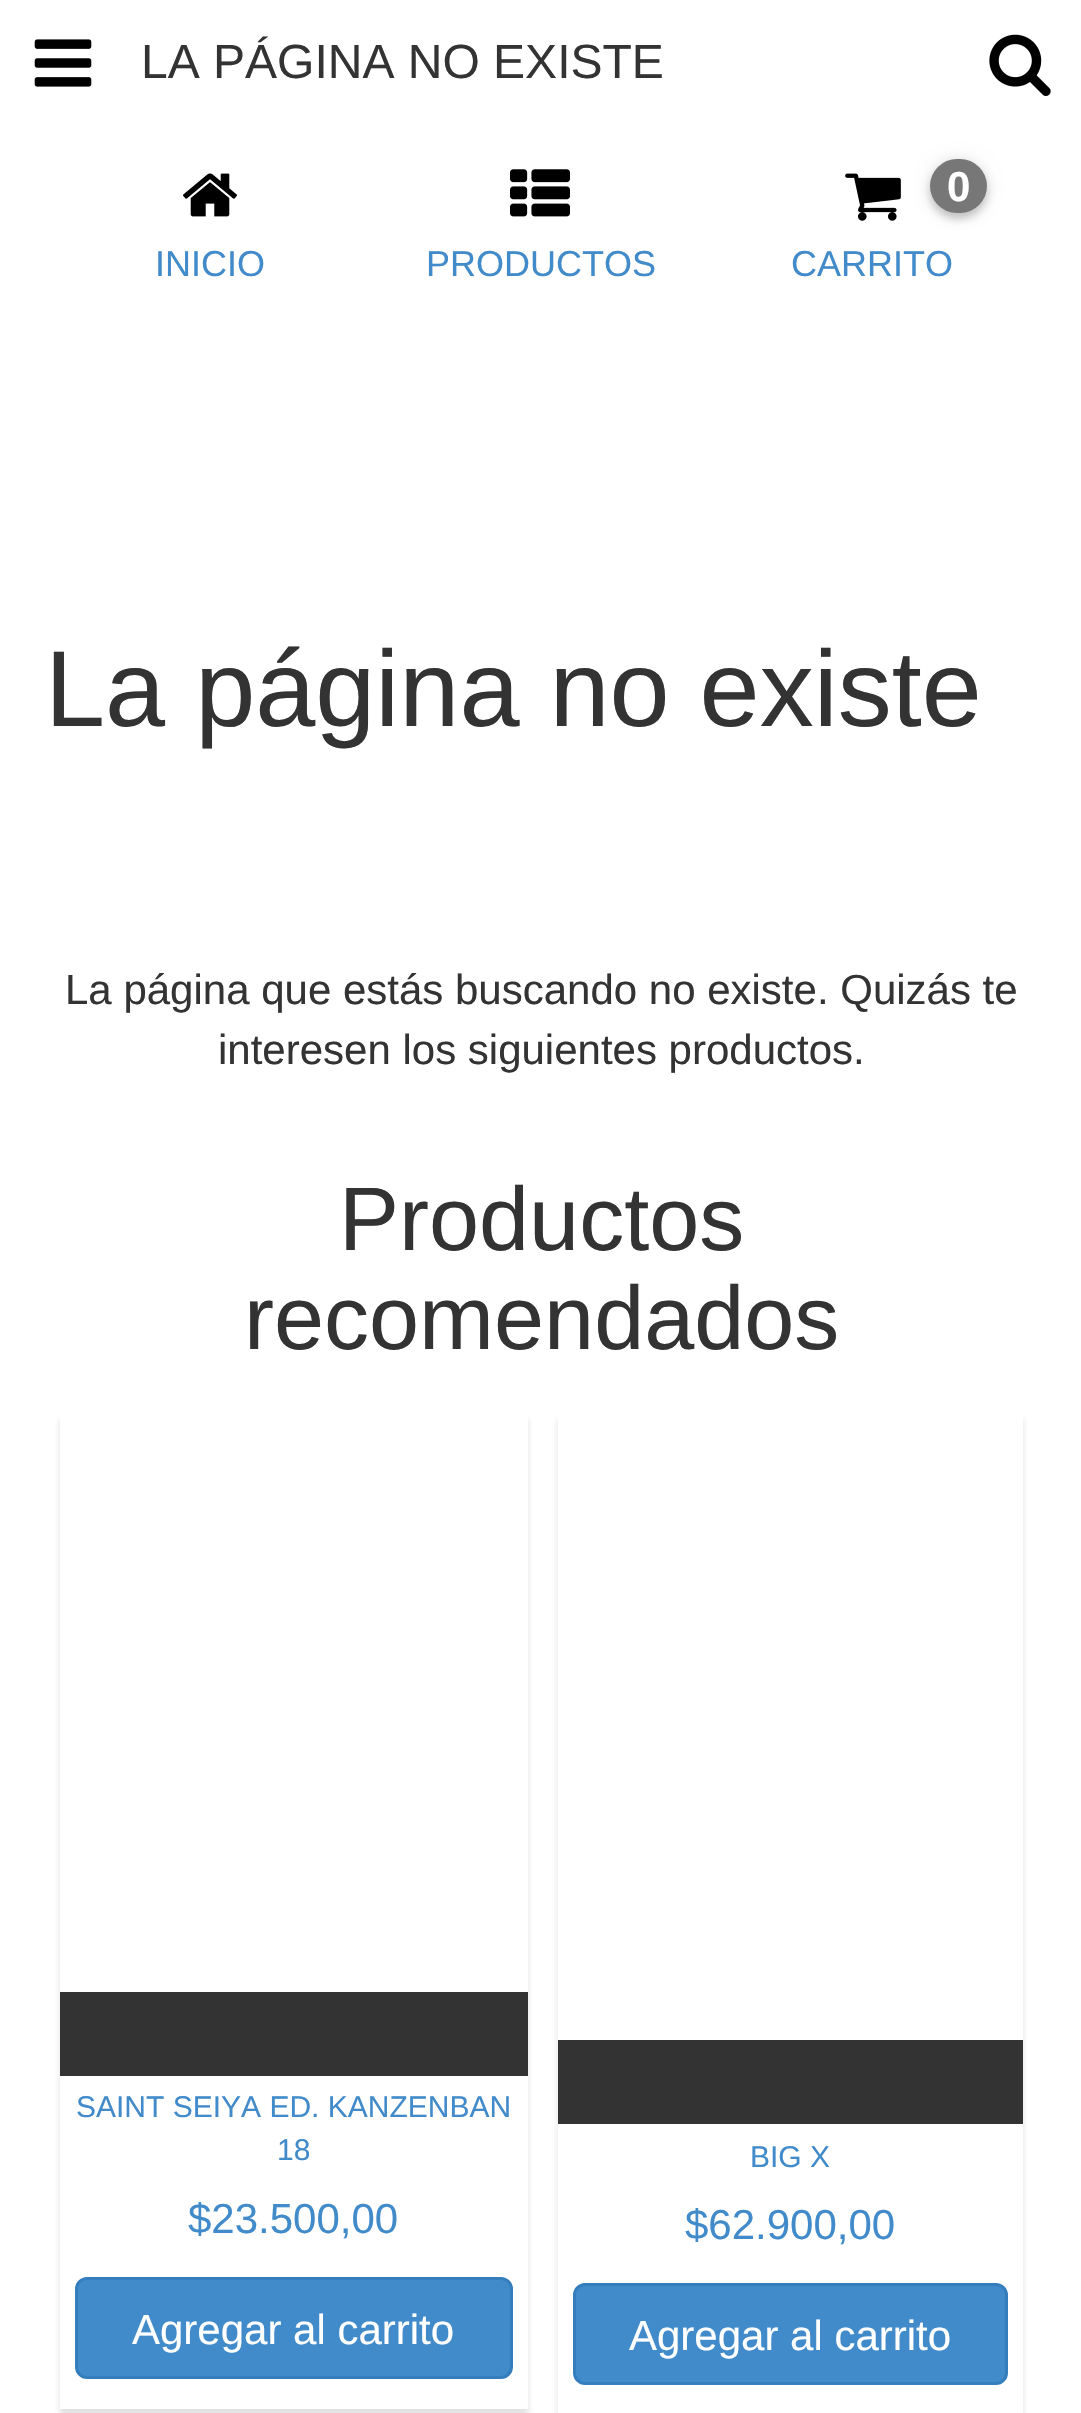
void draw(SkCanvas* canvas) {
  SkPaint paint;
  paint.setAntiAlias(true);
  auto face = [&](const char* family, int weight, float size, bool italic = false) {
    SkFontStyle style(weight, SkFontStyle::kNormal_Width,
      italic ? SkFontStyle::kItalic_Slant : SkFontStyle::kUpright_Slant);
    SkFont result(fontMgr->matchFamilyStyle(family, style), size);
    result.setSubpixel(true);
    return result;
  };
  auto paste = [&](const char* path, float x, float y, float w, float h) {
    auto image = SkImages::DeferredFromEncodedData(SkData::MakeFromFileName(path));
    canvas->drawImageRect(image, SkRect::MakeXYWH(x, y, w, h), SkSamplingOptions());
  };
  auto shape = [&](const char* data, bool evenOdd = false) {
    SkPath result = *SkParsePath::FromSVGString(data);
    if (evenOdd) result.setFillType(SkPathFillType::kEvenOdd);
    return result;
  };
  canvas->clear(0xffffffff);
  paste("img/1.png", 34, 39, 58, 48);
  paste("img/2.png", 989, 34, 62, 62);
  paste("img/3.png", 183, 173, 54, 44);
  paste("img/4.png", 510, 169, 60, 48);
  paste("img/5.png", 845, 173, 56, 48);
  paint.setColor(0x33000000);
  paint.setMaskFilter(SkMaskFilter::MakeBlur(kNormal_SkBlurStyle, 4.5f));
  canvas->drawRoundRect(SkRect::MakeXYWH(930, 165, 57, 54), 27, 27, paint);
  paint.setMaskFilter(nullptr);
  paint.setColor(0x1a000000);
  paint.setMaskFilter(SkMaskFilter::MakeBlur(kNormal_SkBlurStyle, 7.5f));
  canvas->drawRoundRect(SkRect::MakeXYWH(930, 159, 57, 54), 27, 27, paint);
  paint.setMaskFilter(nullptr);
  paint.setColor(0xff777777);
  canvas->drawRoundRect(SkRect::MakeXYWH(930, 159, 57, 54), 27, 27, paint);
  canvas->save();
  canvas->clipPath(shape("M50 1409H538V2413H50ZM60 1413H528V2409H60Z", true), true);
  paint.setColor(0x26323232);
  paint.setMaskFilter(SkMaskFilter::MakeBlur(kNormal_SkBlurStyle, 3));
  canvas->drawRect(SkRect::MakeXYWH(60, 1419, 468, 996), paint);
  paint.setMaskFilter(nullptr);
  canvas->restore();
  paint.setColor(0xff333333);
  canvas->drawRect(SkRect::MakeXYWH(60, 1992, 468, 84), paint);
  paint.setColor(0xff428bca);
  canvas->drawRoundRect(SkRect::MakeXYWH(76.5f, 2278.5f, 435, 99), 10.5f, 10.5f, paint);
  paint.setStroke(true);
  paint.setStrokeWidth(3);
  paint.setColor(0xff357ebd);
  canvas->drawRoundRect(SkRect::MakeXYWH(76.5f, 2278.5f, 435, 99), 10.5f, 10.5f, paint);
  canvas->save();
  canvas->clipPath(shape("M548 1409H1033V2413H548ZM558 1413H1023V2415H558Z", true), true);
  paint.setStroke(false);
  paint.setColor(0x26323232);
  paint.setMaskFilter(SkMaskFilter::MakeBlur(kNormal_SkBlurStyle, 3));
  canvas->drawRect(SkRect::MakeXYWH(558, 1419, 465, 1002), paint);
  paint.setMaskFilter(nullptr);
  canvas->restore();
  paint.setColor(0xff333333);
  canvas->drawRect(SkRect::MakeXYWH(558, 2040, 465, 84), paint);
  paint.setColor(0xff428bca);
  canvas->drawRoundRect(SkRect::MakeXYWH(574.5f, 2284.5f, 432, 99), 10.5f, 10.5f, paint);
  paint.setStroke(true);
  paint.setColor(0xff357ebd);
  canvas->drawRoundRect(SkRect::MakeXYWH(574.5f, 2284.5f, 432, 99), 10.5f, 10.5f, paint);
  auto f0 = face("Liberation Sans", 400, 48);
  paint.setStroke(false);
  paint.setColor(0xff333333);
  canvas->drawString("LA PÁGINA NO EXISTE", 141, 78, f0, paint);
  auto f1 = face("Liberation Sans", 400, 36);
  paint.setColor(0xff428bca);
  canvas->drawString("INICIO", 155, 276, f1, paint);
  canvas->drawString("PRODUCTOS", 426, 276, f1, paint);
  auto f2 = face("Liberation Sans", 700, 42);
  paint.setColor(0xffffffff);
  canvas->drawString("0", 947, 201, f2, paint);
  paint.setColor(0xff428bca);
  canvas->drawString("CARRITO", 791, 276, f1, paint);
  auto f3 = face("Liberation Sans", 400, 108);
  paint.setColor(0xff333333);
  canvas->drawString("La página no existe", 45, 726, f3, paint);
  auto f4 = face("Liberation Sans", 400, 42);
  canvas->drawString("La página que estás buscando no existe. Quizás te", 65, 1004, f4, paint);
  canvas->drawString("interesen los siguientes productos.", 218, 1064, f4, paint);
  auto f5 = face("Liberation Sans", 400, 90);
  canvas->drawString("Productos", 339, 1250, f5, paint);
  canvas->drawString("recomendados", 244, 1349, f5, paint);
  auto f6 = face("Liberation Sans", 400, 30);
  paint.setColor(0xff428bca);
  canvas->drawString("SAINT SEIYA ED. KANZENBAN", 76, 2117, f6, paint);
  canvas->drawString("18", 277, 2160, f6, paint);
  canvas->drawString("$23.500,00", 188, 2233, f4, paint);
  paint.setColor(0xffffffff);
  canvas->drawString("Agregar al carrito", 132, 2344, f4, paint);
  paint.setColor(0xff428bca);
  canvas->drawString("BIG X", 750, 2167, f6, paint);
  canvas->drawString("$62.900,00", 685, 2239, f4, paint);
  paint.setColor(0xffffffff);
  canvas->drawString("Agregar al carrito", 629, 2350, f4, paint);
}
